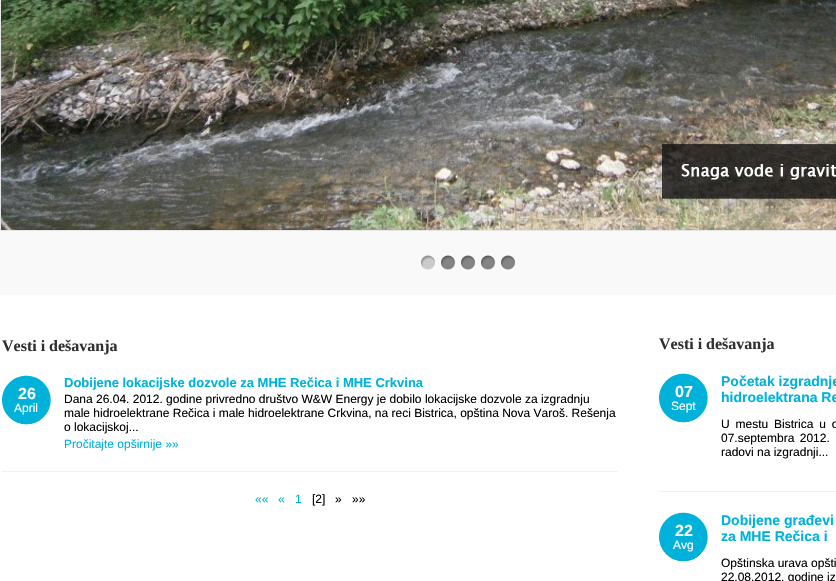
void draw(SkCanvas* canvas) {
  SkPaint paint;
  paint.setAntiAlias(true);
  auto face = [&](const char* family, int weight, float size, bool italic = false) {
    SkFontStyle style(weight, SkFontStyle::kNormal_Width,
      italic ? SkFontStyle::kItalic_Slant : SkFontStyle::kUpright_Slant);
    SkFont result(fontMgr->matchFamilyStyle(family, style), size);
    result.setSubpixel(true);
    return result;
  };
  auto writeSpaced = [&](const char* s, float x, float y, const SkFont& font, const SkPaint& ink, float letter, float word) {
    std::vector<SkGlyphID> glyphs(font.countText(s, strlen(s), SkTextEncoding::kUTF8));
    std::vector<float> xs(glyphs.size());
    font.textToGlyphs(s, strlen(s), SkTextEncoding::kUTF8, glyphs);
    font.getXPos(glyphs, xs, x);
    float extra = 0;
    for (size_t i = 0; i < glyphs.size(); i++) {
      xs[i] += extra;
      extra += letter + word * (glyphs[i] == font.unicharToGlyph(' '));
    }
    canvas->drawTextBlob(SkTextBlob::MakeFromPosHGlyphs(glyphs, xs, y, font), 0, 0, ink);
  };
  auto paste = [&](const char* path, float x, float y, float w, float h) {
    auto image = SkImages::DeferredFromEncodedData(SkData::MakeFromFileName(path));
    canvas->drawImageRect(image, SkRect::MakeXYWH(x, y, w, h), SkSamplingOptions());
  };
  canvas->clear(0xffffffff);
  paint.setColor(0xfff9f9f9);
  canvas->drawRect(SkRect::MakeXYWH(0, 231, 836, 64), paint);
  paint.setStroke(true);
  paint.setStrokeWidth(1);
  paint.setColor(0xffe6e6e6);
  canvas->drawRect(SkRect::MakeXYWH(0.5f, -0.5f, 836, 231), paint);
  paste("img/1.png", 1, 0, 835, 230);
  paste("img/2.png", 421, 255, 14, 15);
  paste("img/3.png", 441, 255, 14, 15);
  paste("img/3.png", 461, 255, 14, 15);
  paste("img/3.png", 481, 255, 14, 15);
  paste("img/3.png", 501, 255, 14, 15);
  paint.setStroke(false);
  paint.setColor(0xfff1f1f1);
  canvas->drawRect(SkRect::MakeXYWH(2, 471, 616, 1), paint);
  paste("img/4.png", 2, 375, 49, 50);
  canvas->drawRect(SkRect::MakeXYWH(659, 491, 177, 1), paint);
  paste("img/4.png", 659, 373, 49, 50);
  paste("img/4.png", 659, 512, 49, 50);
  auto f0 = face("Liberation Serif", 700, 16);
  paint.setColor(0xff303030);
  canvas->drawString("Vesti i dešavanja", 2, 351, f0, paint);
  auto f1 = face("Liberation Sans", 700, 16);
  paint.setColor(0xffffffff);
  canvas->drawString("26", 18, 399, f1, paint);
  auto f2 = face("Liberation Sans", 400, 12);
  canvas->drawString("April", 14, 412, f2, paint);
  auto f3 = face("Liberation Sans", 700, 13);
  paint.setColor(0xff00b2d9);
  canvas->drawString("Dobijene lokacijske dozvole za MHE Rečica i MHE Crkvina", 64, 387, f3, paint);
  paint.setColor(0xff000000);
  {
    const struct { const char* s; float x, y; } items[] = {
      {"Dana 26.04. 2012. godine privredno društvo W&W Energy je dobilo lokacijske dozvole za izgradnju", 64, 403},
      {"male hidroelektrane Rečica i male hidroelektrane Crkvina, na reci Bistrica, opština Nova Varoš. Rešenja", 64, 417},
      {"o lokacijskoj...", 64, 431},
    };
    for (auto [s, x, y] : items) {
      canvas->drawString(s, x, y, f2, paint);
    }
  }
  paint.setColor(0xff00b2d9);
  {
    const struct { const char* s; float x, y; } items[] = {
      {"Pročitajte opširnije »»", 64, 448},
      {"««", 255, 503},
      {"«", 278, 503},
      {"1", 295, 503},
    };
    for (auto [s, x, y] : items) {
      canvas->drawString(s, x, y, f2, paint);
    }
  }
  paint.setColor(0xff000000);
  {
    const struct { const char* s; float x, y; } items[] = {
      {"[2]", 312, 503},
      {"»", 335, 503},
      {"»»", 352, 503},
    };
    for (auto [s, x, y] : items) {
      canvas->drawString(s, x, y, f2, paint);
    }
  }
  paint.setColor(0xff303030);
  canvas->drawString("Vesti i dešavanja", 659, 349, f0, paint);
  paint.setColor(0xffffffff);
  canvas->drawString("07", 675, 397, f1, paint);
  canvas->drawString("Sept", 671, 410, f2, paint);
  auto f4 = face("Liberation Sans", 700, 14);
  paint.setColor(0xff00b2d9);
  canvas->drawString("Početak izgradnje", 721, 386, f4, paint);
  canvas->drawString("hidroelektrana Re", 721, 402, f4, paint);
  paint.setColor(0xff000000);
  writeSpaced("U mestu Bistrica u o", 721, 428, f2, paint, 0, 2.5f);
  writeSpaced("07.septembra 2012.", 721, 442, f2, paint, 0, 2);
  canvas->drawString("radovi na izgradnji...", 721, 456, f2, paint);
  paint.setColor(0xffffffff);
  canvas->drawString("22", 675, 536, f1, paint);
  canvas->drawString("Avg", 673, 549, f2, paint);
  paint.setColor(0xff00b2d9);
  canvas->drawString("Dobijene građevi", 721, 525, f4, paint);
  canvas->drawString("za MHE Rečica i", 721, 541, f4, paint);
  paint.setColor(0xff000000);
  canvas->drawString("Opštinska urava opšti", 721, 567, f2, paint);
  canvas->drawString("22.08.2012. godine iz", 721, 581, f2, paint);
}
